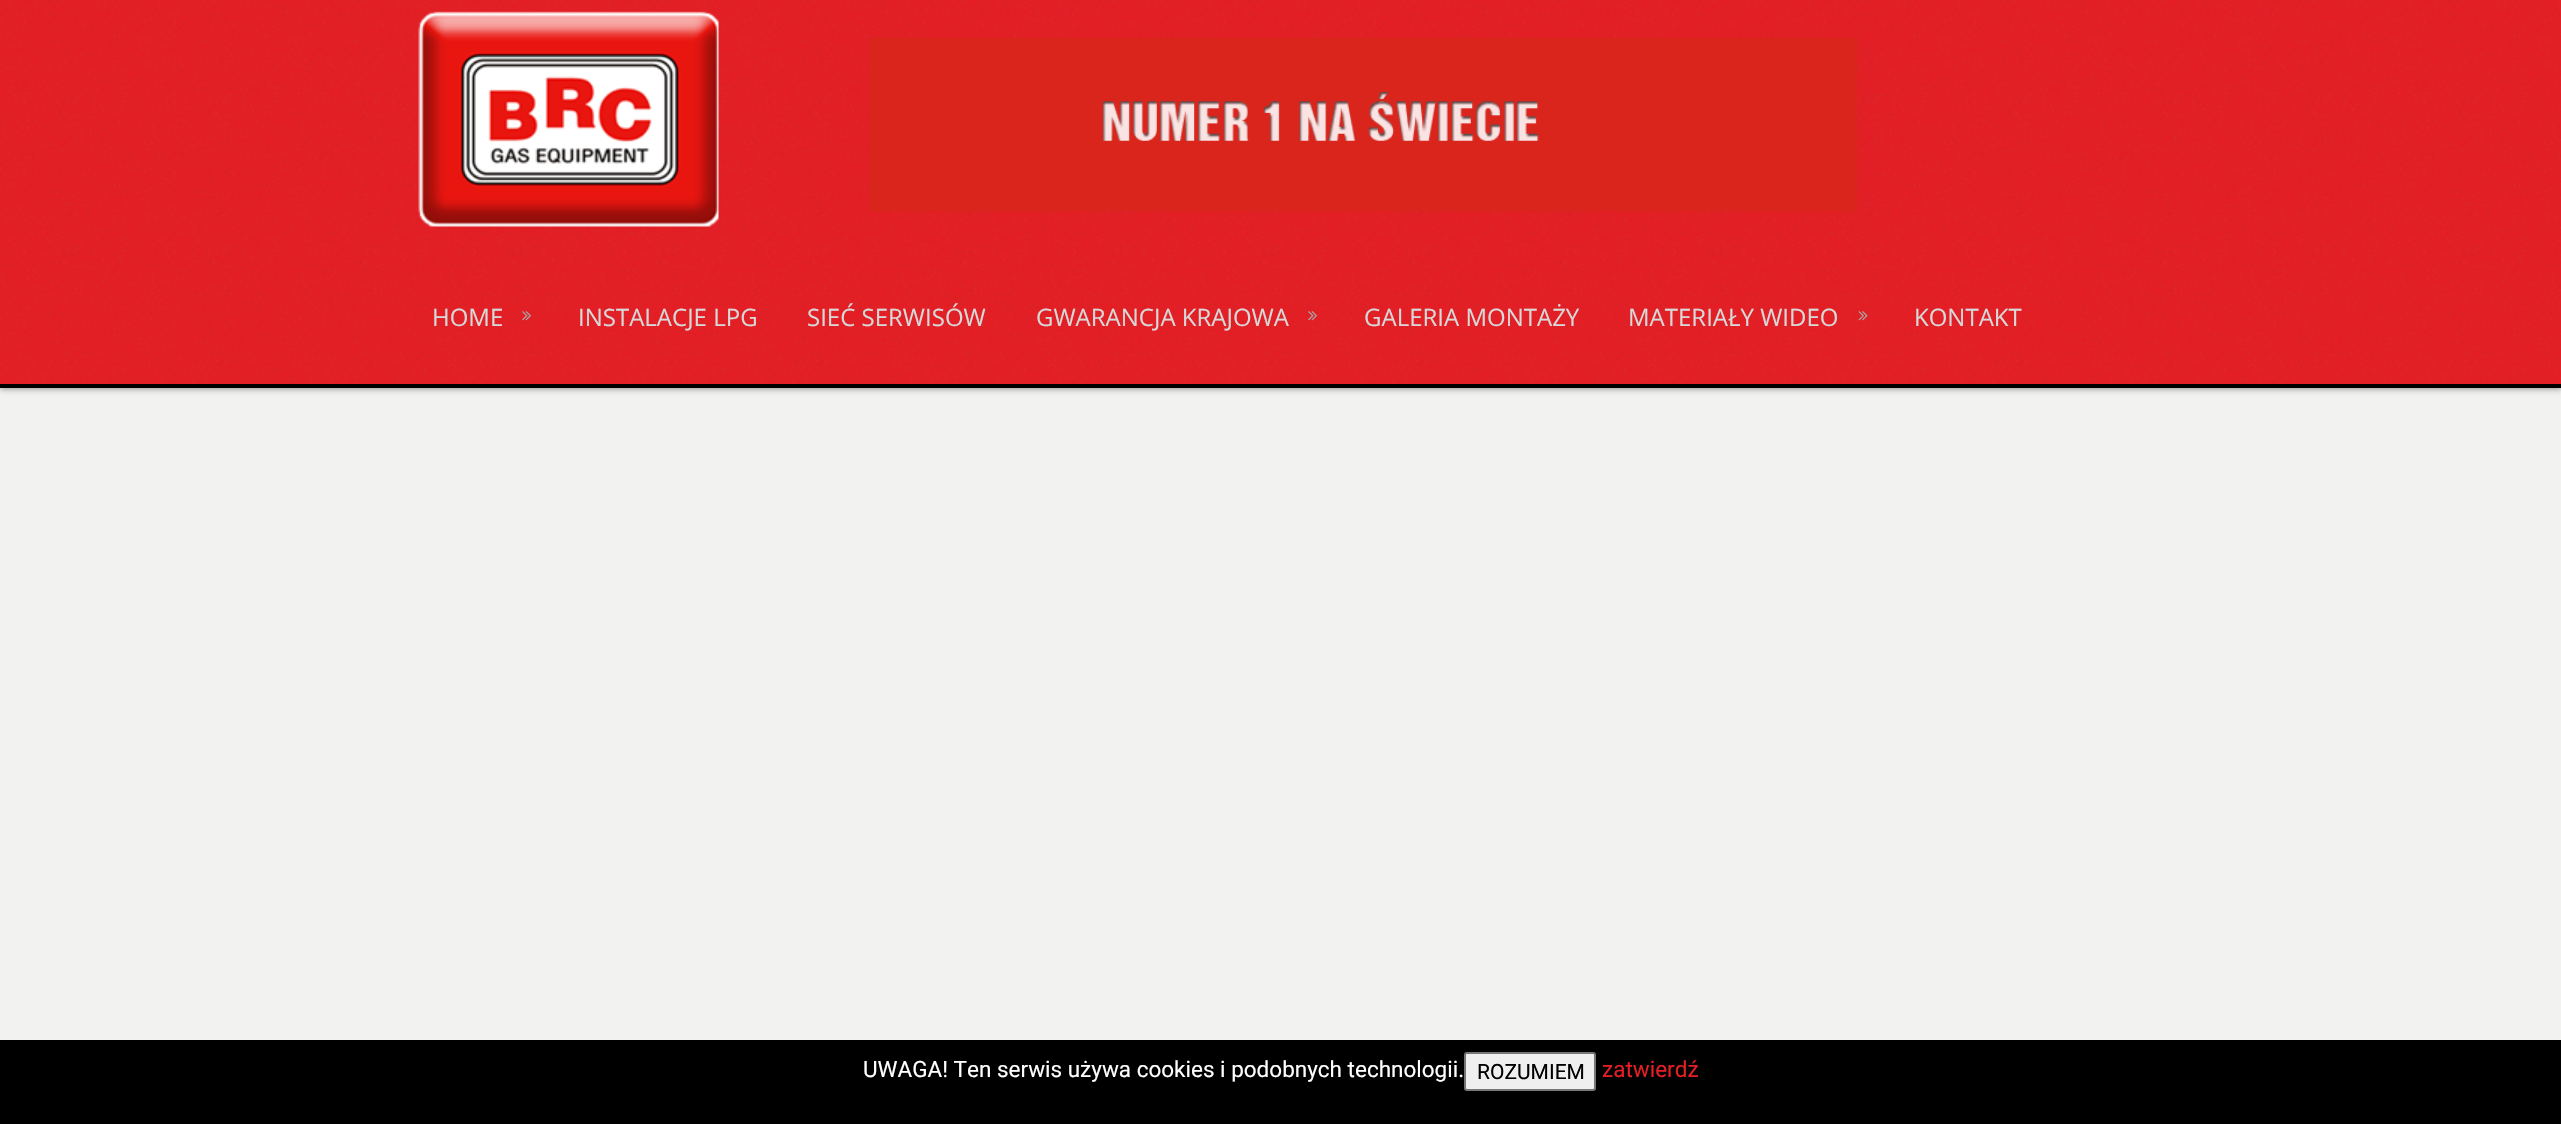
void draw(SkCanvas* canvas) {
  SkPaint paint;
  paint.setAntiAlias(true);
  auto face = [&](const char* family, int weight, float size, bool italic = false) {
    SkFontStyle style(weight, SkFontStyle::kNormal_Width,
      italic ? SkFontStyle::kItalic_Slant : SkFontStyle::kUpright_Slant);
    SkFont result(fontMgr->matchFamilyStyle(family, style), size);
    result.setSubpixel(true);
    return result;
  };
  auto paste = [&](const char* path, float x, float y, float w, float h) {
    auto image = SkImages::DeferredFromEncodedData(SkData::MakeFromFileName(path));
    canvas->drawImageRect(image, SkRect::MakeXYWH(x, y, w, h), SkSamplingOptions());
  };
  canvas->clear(0xfff2f2f1);
  paint.setColor(0xff000000);
  canvas->drawRect(SkRect::MakeXYWH(0, 386, 2561, 2), paint);
  paint.setColor(0x66000000);
  paint.setMaskFilter(SkMaskFilter::MakeBlur(kNormal_SkBlurStyle, 3));
  canvas->drawRect(SkRect::MakeXYWH(0, 3, 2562, 386), paint);
  paint.setMaskFilter(nullptr);
  paint.setColor(0xffe31e24);
  canvas->drawRect(SkRect::MakeXYWH(0, 0, 2561, 384), paint);
  paint.setColor(0xff000000);
  canvas->drawRect(SkRect::MakeXYWH(0, 384, 2561, 2), paint);
  paste("img/1.png", 0, 0, 2561, 384);
  paste("img/2.png", 418, 11, 301, 216);
  paste("img/3.png", 868, 37, 989, 175);
  paste("img/4.png", 522, 311, 9, 10);
  paste("img/5.png", 1308, 311, 9, 10);
  paste("img/6.png", 1858, 311, 10, 10);
  canvas->drawRect(SkRect::MakeXYWH(0, 1040, 2561, 84), paint);
  paint.setColor(0xffefefef);
  canvas->drawRoundRect(SkRect::MakeXYWH(1465, 1053, 130, 37), 2, 2, paint);
  paint.setStroke(true);
  paint.setStrokeWidth(2);
  paint.setColor(0xff767676);
  canvas->drawRoundRect(SkRect::MakeXYWH(1465, 1053, 130, 37), 2, 2, paint);
  auto f0 = face("Open Sans", 400, 24);
  paint.setStroke(false);
  paint.setColor(0xffd8d8d8);
  {
    const struct { const char* s; float x, y; } items[] = {
      {"HOME", 432, 326},
      {"INSTALACJE LPG", 578, 326},
      {"SIEĆ SERWISÓW", 807, 326},
      {"GWARANCJA KRAJOWA", 1036, 326},
      {"GALERIA MONTAŻY", 1364, 326},
      {"MATERIAŁY WIDEO", 1628, 326},
      {"KONTAKT", 1914, 326},
    };
    for (auto [s, x, y] : items) {
      canvas->drawString(s, x, y, f0, paint);
    }
  }
  auto f1 = face("Roboto", 400, 22.5f);
  paint.setColor(0xffffffff);
  canvas->drawString("UWAGA! Ten serwis używa cookies i podobnych technologii.", 863, 1077, f1, paint);
  auto f2 = face("Roboto", 400, 21);
  paint.setColor(0xff000000);
  canvas->drawString("ROZUMIEM", 1477, 1079, f2, paint);
  paint.setColor(0xffe31e24);
  canvas->drawString("zatwierdź", 1602, 1077, f1, paint);
}
